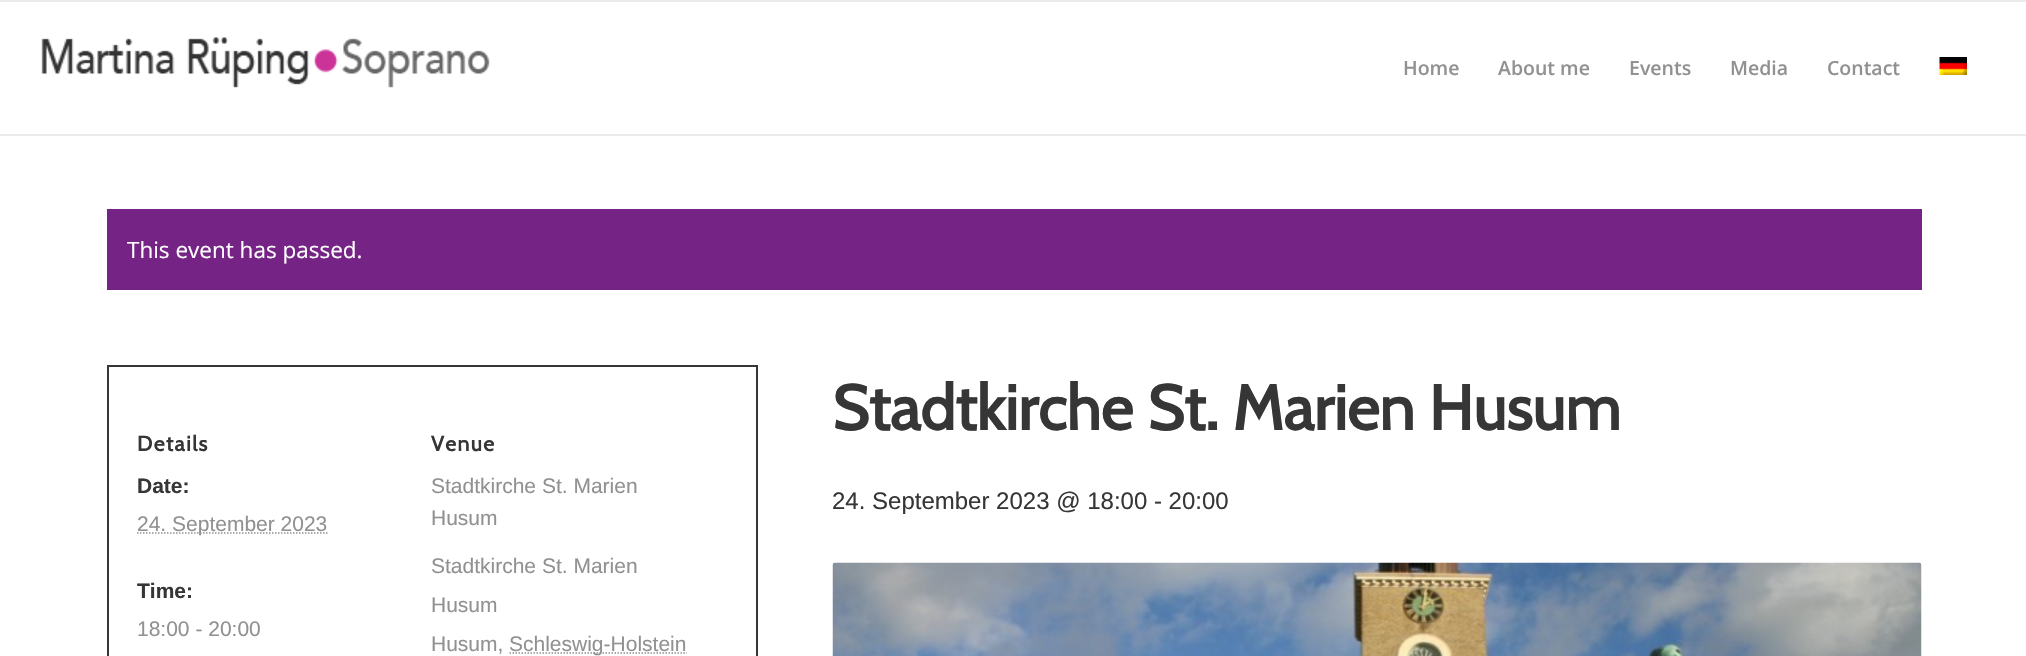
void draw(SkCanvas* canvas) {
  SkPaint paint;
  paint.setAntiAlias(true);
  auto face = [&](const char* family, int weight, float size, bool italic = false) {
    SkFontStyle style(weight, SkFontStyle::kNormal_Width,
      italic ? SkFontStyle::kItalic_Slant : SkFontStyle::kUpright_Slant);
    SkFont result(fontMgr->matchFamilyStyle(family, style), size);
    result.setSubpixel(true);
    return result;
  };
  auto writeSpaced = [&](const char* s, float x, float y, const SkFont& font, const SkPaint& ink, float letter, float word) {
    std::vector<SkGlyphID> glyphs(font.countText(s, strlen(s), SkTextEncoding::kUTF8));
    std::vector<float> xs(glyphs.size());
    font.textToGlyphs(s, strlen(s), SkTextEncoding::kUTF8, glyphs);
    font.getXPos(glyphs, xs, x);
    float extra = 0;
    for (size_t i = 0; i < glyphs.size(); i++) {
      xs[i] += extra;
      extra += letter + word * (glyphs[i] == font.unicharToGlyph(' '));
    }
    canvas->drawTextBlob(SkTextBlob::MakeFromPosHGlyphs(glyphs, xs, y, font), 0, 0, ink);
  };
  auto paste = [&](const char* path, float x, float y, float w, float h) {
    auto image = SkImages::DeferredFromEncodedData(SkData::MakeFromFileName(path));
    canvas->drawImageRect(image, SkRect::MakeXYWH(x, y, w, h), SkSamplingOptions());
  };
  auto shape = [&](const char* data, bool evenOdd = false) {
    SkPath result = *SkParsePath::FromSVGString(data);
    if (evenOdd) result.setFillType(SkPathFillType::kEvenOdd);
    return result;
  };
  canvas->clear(0xffffffff);
  paint.setColor(0xffebebeb);
  canvas->drawRect(SkRect::MakeXYWH(0, 0, 2026, 2), paint);
  canvas->drawRect(SkRect::MakeXYWH(0, 134, 2026, 2), paint);
  paste("img/1.png", 41, 37, 449, 51);
  paste("img/2.png", 1939, 57, 28, 18);
  paint.setColor(0xff752385);
  canvas->drawRect(SkRect::MakeXYWH(107, 209, 1815, 81), paint);
  paint.setStroke(true);
  paint.setStrokeWidth(2);
  paint.setColor(0xff363636);
  canvas->drawRect(SkRect::MakeXYWH(108, 366, 649, 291), paint);
  paint.setStrokeWidth(1.5f);
  paint.setColor(0xff919191);
  paint.setPathEffect(SkDashPathEffect::Make({{1.5f, 1.5f}}, 0));
  canvas->drawPath(shape("M137 533H327.5"), paint);
  paint.setPathEffect(nullptr);
  paint.setPathEffect(SkDashPathEffect::Make({{1.5f, 1.5f}}, 0));
  canvas->drawPath(shape("M509.5 653H687"), paint);
  paint.setPathEffect(nullptr);
  paste("img/3.png", 832, 562, 1090, 94);
  auto f0 = face("Open Sans", 600, 19.5f);
  paint.setStroke(false);
  {
    const struct { const char* s; float x, y; } items[] = {
      {"Home", 1403, 75},
      {"About me", 1498, 75},
      {"Events", 1629, 75},
      {"Media", 1730, 75},
      {"Contact", 1827, 75},
    };
    for (auto [s, x, y] : items) {
      canvas->drawString(s, x, y, f0, paint);
    }
  }
  auto f1 = face("Open Sans", 400, 22.5f);
  paint.setColor(0xffffffff);
  canvas->drawString("This event has passed.", 127, 258, f1, paint);
  auto f2 = face("Cabin", 700, 21);
  paint.setColor(0xff363636);
  writeSpaced("Details", 137, 451, f2, paint, 1.5f, 0);
  auto f3 = face("Liberation Sans", 700, 21);
  canvas->drawString("Date:", 137, 493, f3, paint);
  auto f4 = face("Liberation Sans", 400, 21);
  paint.setColor(0xff919191);
  canvas->drawString("24. September 2023", 137, 531, f4, paint);
  paint.setColor(0xff363636);
  canvas->drawString("Time:", 137, 598, f3, paint);
  paint.setColor(0xff919191);
  canvas->drawString("18:00 - 20:00", 137, 636, f4, paint);
  paint.setColor(0xff363636);
  writeSpaced("Venue", 431, 451, f2, paint, 1.5f, 0);
  paint.setColor(0xff919191);
  {
    const struct { const char* s; float x, y; } items[] = {
      {"Stadtkirche St. Marien", 431, 493},
      {"Husum", 431, 525},
      {"Stadtkirche St. Marien", 431, 573},
      {"Husum", 431, 612},
      {"Husum,", 431, 651},
      {"Schleswig-Holstein", 509, 651},
    };
    for (auto [s, x, y] : items) {
      canvas->drawString(s, x, y, f4, paint);
    }
  }
  auto f5 = face("Cabin", 700, 63);
  paint.setColor(0xff363636);
  canvas->drawString("Stadtkirche St. Marien Husum", 832, 430, f5, paint);
  auto f6 = face("Liberation Sans", 400, 24);
  canvas->drawString("24. September 2023 @ 18:00 - 20:00", 832, 509, f6, paint);
}
